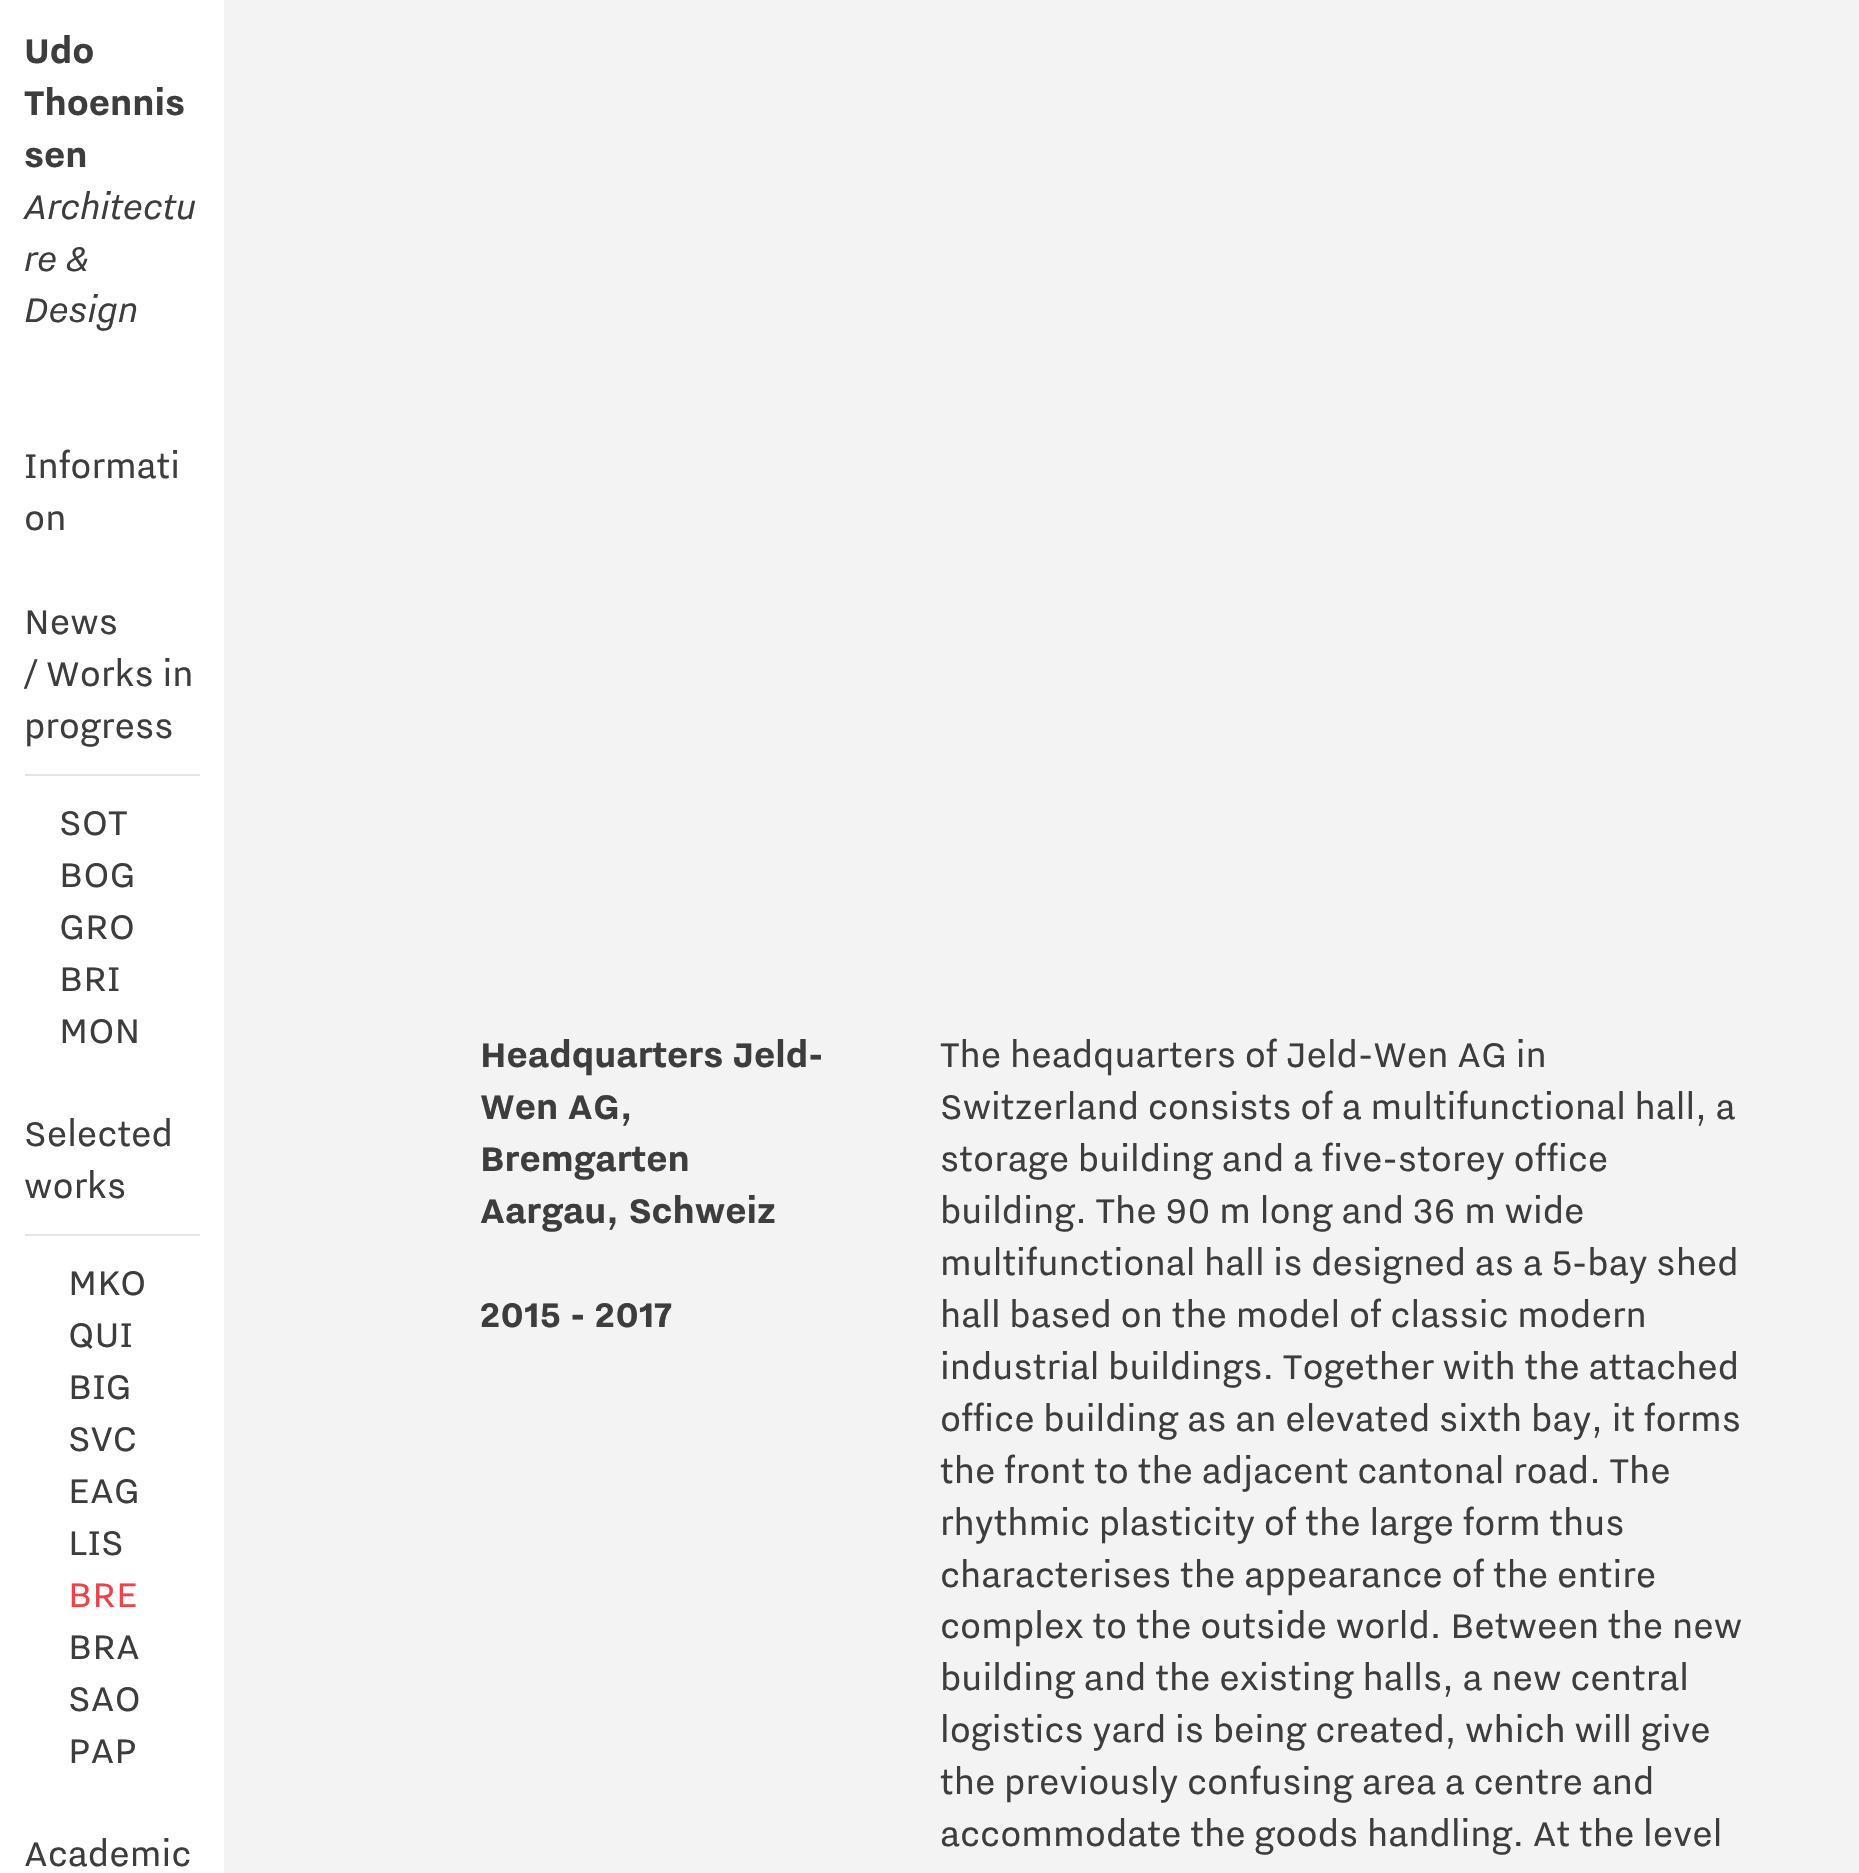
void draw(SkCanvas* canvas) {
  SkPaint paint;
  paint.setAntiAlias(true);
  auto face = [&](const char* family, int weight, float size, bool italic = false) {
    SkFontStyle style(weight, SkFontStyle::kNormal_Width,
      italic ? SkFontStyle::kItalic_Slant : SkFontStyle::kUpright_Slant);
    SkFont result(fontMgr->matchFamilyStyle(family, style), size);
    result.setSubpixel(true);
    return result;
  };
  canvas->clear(0xfff3f3f3);
  {
    const struct { float x, y, w, h; SkColor color; } items[] = {
      {0, 0, 224, 1873, 0xffffffff},
      {25, 774, 175, 2, 0xffe5e5e5},
      {25, 1234, 175, 2, 0xffe5e5e5},
    };
    for (auto [x, y, w, h, color] : items) {
      paint.setColor(color);
      canvas->drawRect(SkRect::MakeXYWH(x, y, w, h), paint);
    }
  }
  auto f0 = face("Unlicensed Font", 700, 43.25f);
  paint.setColor(0xff3d3d3d);
  {
    const struct { const char* s; float x, y; } items[] = {
      {"Udo", 24, 63},
      {"Thoennis", 24, 115},
      {"sen", 24, 167},
    };
    for (auto [s, x, y] : items) {
      canvas->drawString(s, x, y, f0, paint);
    }
  }
  auto f1 = face("Unlicensed Font", 400, 43.25f, true);
  {
    const struct { const char* s; float x, y; } items[] = {
      {"Architectu", 24, 219},
      {"re &", 24, 271},
      {"Design", 24, 322},
    };
    for (auto [s, x, y] : items) {
      canvas->drawString(s, x, y, f1, paint);
    }
  }
  auto f2 = face("Unlicensed Font", 400, 43.25f);
  {
    const struct { const char* s; float x, y; } items[] = {
      {"Informati", 24, 478},
      {"on", 24, 530},
      {"News", 24, 634},
      {"/ Works in", 24, 686},
      {"progress", 24, 738},
      {"SOT", 59, 835},
      {"BOG", 59, 887},
      {"GRO", 59, 939},
      {"BRI", 59, 991},
      {"MON", 59, 1043},
      {"Selected", 24, 1146},
      {"works", 24, 1198},
      {"MKO", 68, 1295},
      {"QUI", 68, 1347},
      {"BIG", 68, 1399},
      {"SVC", 68, 1451},
      {"EAG", 68, 1503},
      {"LIS", 68, 1555},
    };
    for (auto [s, x, y] : items) {
      canvas->drawString(s, x, y, f2, paint);
    }
  }
  paint.setColor(0xffec444a);
  canvas->drawString("BRE", 68, 1607, f2, paint);
  paint.setColor(0xff3d3d3d);
  {
    const struct { const char* s; float x, y; } items[] = {
      {"BRA", 68, 1659},
      {"SAO", 68, 1711},
      {"PAP", 68, 1763},
      {"Academic", 24, 1866},
    };
    for (auto [s, x, y] : items) {
      canvas->drawString(s, x, y, f2, paint);
    }
  }
  {
    const struct { const char* s; float x, y; } items[] = {
      {"Headquarters Jeld-", 480, 1067},
      {"Wen AG,", 480, 1119},
      {"Bremgarten", 480, 1171},
      {"Aargau, Schweiz", 480, 1223},
      {"2015 - 2017", 480, 1327},
    };
    for (auto [s, x, y] : items) {
      canvas->drawString(s, x, y, f0, paint);
    }
  }
  {
    const struct { const char* s; float x, y; } items[] = {
      {"The headquarters of Jeld-Wen AG in", 940, 1067},
      {"Switzerland consists of a multifunctional hall, a", 940, 1119},
      {"storage building and a five-storey office", 940, 1171},
      {"building. The 90 m long and 36 m wide", 940, 1223},
      {"multifunctional hall is designed as a 5-bay shed", 940, 1275},
      {"hall based on the model of classic modern", 940, 1327},
      {"industrial buildings. Together with the attached", 940, 1379},
      {"office building as an elevated sixth bay, it forms", 940, 1431},
      {"the front to the adjacent cantonal road. The", 940, 1483},
      {"rhythmic plasticity of the large form thus", 940, 1535},
      {"characterises the appearance of the entire", 940, 1587},
      {"complex to the outside world. Between the new", 940, 1638},
      {"building and the existing halls, a new central", 940, 1690},
      {"logistics yard is being created, which will give", 940, 1742},
      {"the previously confusing area a centre and", 940, 1794},
      {"accommodate the goods handling. At the level", 940, 1846},
    };
    for (auto [s, x, y] : items) {
      canvas->drawString(s, x, y, f2, paint);
    }
  }
}
